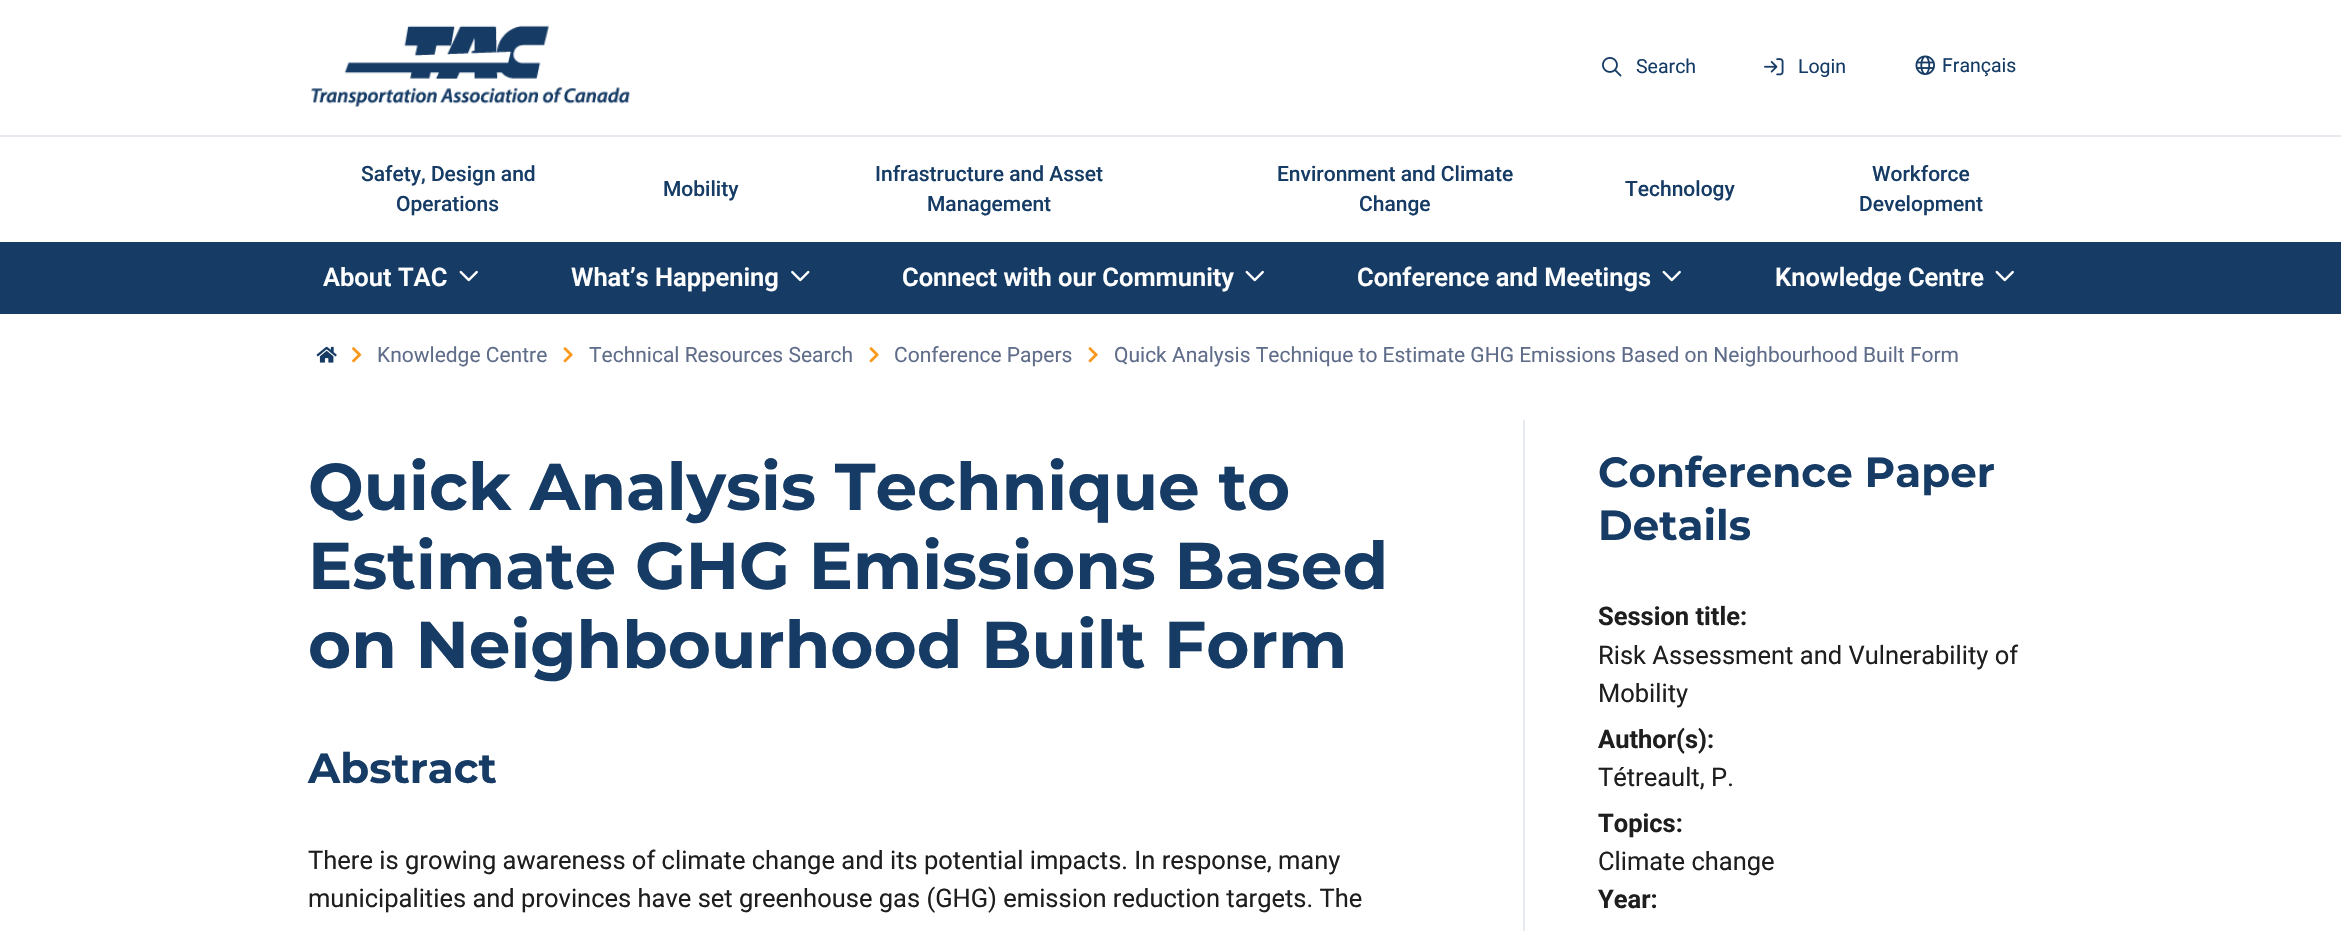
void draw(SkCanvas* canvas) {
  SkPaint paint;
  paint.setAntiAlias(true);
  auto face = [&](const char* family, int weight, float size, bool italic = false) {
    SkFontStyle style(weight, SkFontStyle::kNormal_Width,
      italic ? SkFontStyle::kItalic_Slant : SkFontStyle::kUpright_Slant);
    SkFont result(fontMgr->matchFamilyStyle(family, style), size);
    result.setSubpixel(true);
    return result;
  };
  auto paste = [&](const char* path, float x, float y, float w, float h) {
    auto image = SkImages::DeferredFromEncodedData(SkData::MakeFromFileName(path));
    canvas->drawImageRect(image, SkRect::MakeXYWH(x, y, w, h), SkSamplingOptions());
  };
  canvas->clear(0xffffffff);
  paste("img/1.png", 311, 25, 319, 82);
  paste("img/2.png", 1602, 57, 20, 20);
  paste("img/3.png", 1764, 58, 20, 18);
  paste("img/4.png", 1915, 55, 20, 20);
  paint.setColor(0xffe6e9f0);
  canvas->drawRect(SkRect::MakeXYWH(0, 135, 2341, 2), paint);
  paint.setColor(0xff163c66);
  canvas->drawRect(SkRect::MakeXYWH(0, 242, 2341, 72), paint);
  paste("img/5.png", 459, 270, 19, 12);
  paste("img/6.png", 791, 270, 19, 12);
  paste("img/5.png", 1245, 270, 19, 12);
  paste("img/5.png", 1662, 270, 19, 12);
  paste("img/5.png", 1995, 270, 19, 12);
  paste("img/7.png", 316, 346, 21, 17);
  paste("img/8.png", 352, 347, 10, 16);
  paste("img/9.png", 563, 347, 10, 16);
  paste("img/9.png", 869, 347, 10, 16);
  paste("img/9.png", 1088, 347, 10, 16);
  paint.setColor(0xffe6e9f0);
  canvas->drawRect(SkRect::MakeXYWH(1523, 420, 2, 511), paint);
  auto f0 = face("Roboto", 400, 19.5f);
  paint.setColor(0xff163c66);
  {
    const struct { const char* s; float x, y; } items[] = {
      {"Search", 1636, 73},
      {"Login", 1798, 73},
      {"Français", 1942, 72},
    };
    for (auto [s, x, y] : items) {
      canvas->drawString(s, x, y, f0, paint);
    }
  }
  auto f1 = face("Roboto", 500, 21);
  {
    const struct { const char* s; float x, y; } items[] = {
      {"Safety, Design and", 361, 181},
      {"Operations", 396, 211},
      {"Mobility", 663, 196},
      {"Infrastructure and Asset", 875, 181},
      {"Management", 927, 211},
      {"Environment and Climate", 1277, 181},
      {"Change", 1359, 211},
      {"Technology", 1625, 196},
      {"Workforce", 1872, 181},
      {"Development", 1859, 211},
    };
    for (auto [s, x, y] : items) {
      canvas->drawString(s, x, y, f1, paint);
    }
  }
  auto f2 = face("Roboto", 600, 25.5f);
  paint.setColor(0xffffffff);
  {
    const struct { const char* s; float x, y; } items[] = {
      {"About TAC", 323, 286},
      {"What’s Happening", 571, 286},
      {"Connect with our Community", 902, 286},
      {"Conference and Meetings", 1357, 286},
      {"Knowledge Centre", 1775, 286},
    };
    for (auto [s, x, y] : items) {
      canvas->drawString(s, x, y, f2, paint);
    }
  }
  auto f3 = face("Roboto", 400, 21);
  paint.setColor(0xff606d8a);
  {
    const struct { const char* s; float x, y; } items[] = {
      {"Knowledge Centre", 377, 362},
      {"Technical Resources Search", 589, 362},
      {"Conference Papers", 894, 362},
      {"Quick Analysis Technique to Estimate GHG Emissions Based on Neighbourhood Built Form", 1114, 362},
    };
    for (auto [s, x, y] : items) {
      canvas->drawString(s, x, y, f3, paint);
    }
  }
  auto f4 = face("Montserrat", 700, 66);
  paint.setColor(0xff163c66);
  {
    const struct { const char* s; float x, y; } items[] = {
      {"Quick Analysis Technique to", 308, 510},
      {"Estimate GHG Emissions Based", 308, 589},
      {"on Neighbourhood Built Form", 308, 668},
    };
    for (auto [s, x, y] : items) {
      canvas->drawString(s, x, y, f4, paint);
    }
  }
  auto f5 = face("Montserrat", 700, 42);
  canvas->drawString("Abstract", 308, 783, f5, paint);
  auto f6 = face("Roboto", 400, 25.5f);
  paint.setColor(0xff1e1e1e);
  canvas->drawString("There is growing awareness of climate change and its potential impacts. In response, many", 308, 869, f6, paint);
  canvas->drawString("municipalities and provinces have set greenhouse gas (GHG) emission reduction targets. The", 308, 907, f6, paint);
  paint.setColor(0xff163c66);
  canvas->drawString("Conference Paper", 1598, 487, f5, paint);
  canvas->drawString("Details", 1598, 540, f5, paint);
  auto f7 = face("Roboto", 700, 25.5f);
  paint.setColor(0xff1e1e1e);
  canvas->drawString("Session title:", 1598, 625, f7, paint);
  canvas->drawString("Risk Assessment and Vulnerability of", 1598, 664, f6, paint);
  canvas->drawString("Mobility", 1598, 702, f6, paint);
  canvas->drawString("Author(s):", 1598, 748, f7, paint);
  canvas->drawString("Tétreault, P.", 1598, 786, f6, paint);
  canvas->drawString("Topics:", 1598, 832, f7, paint);
  canvas->drawString("Climate change", 1598, 870, f6, paint);
  canvas->drawString("Year:", 1598, 908, f7, paint);
}
